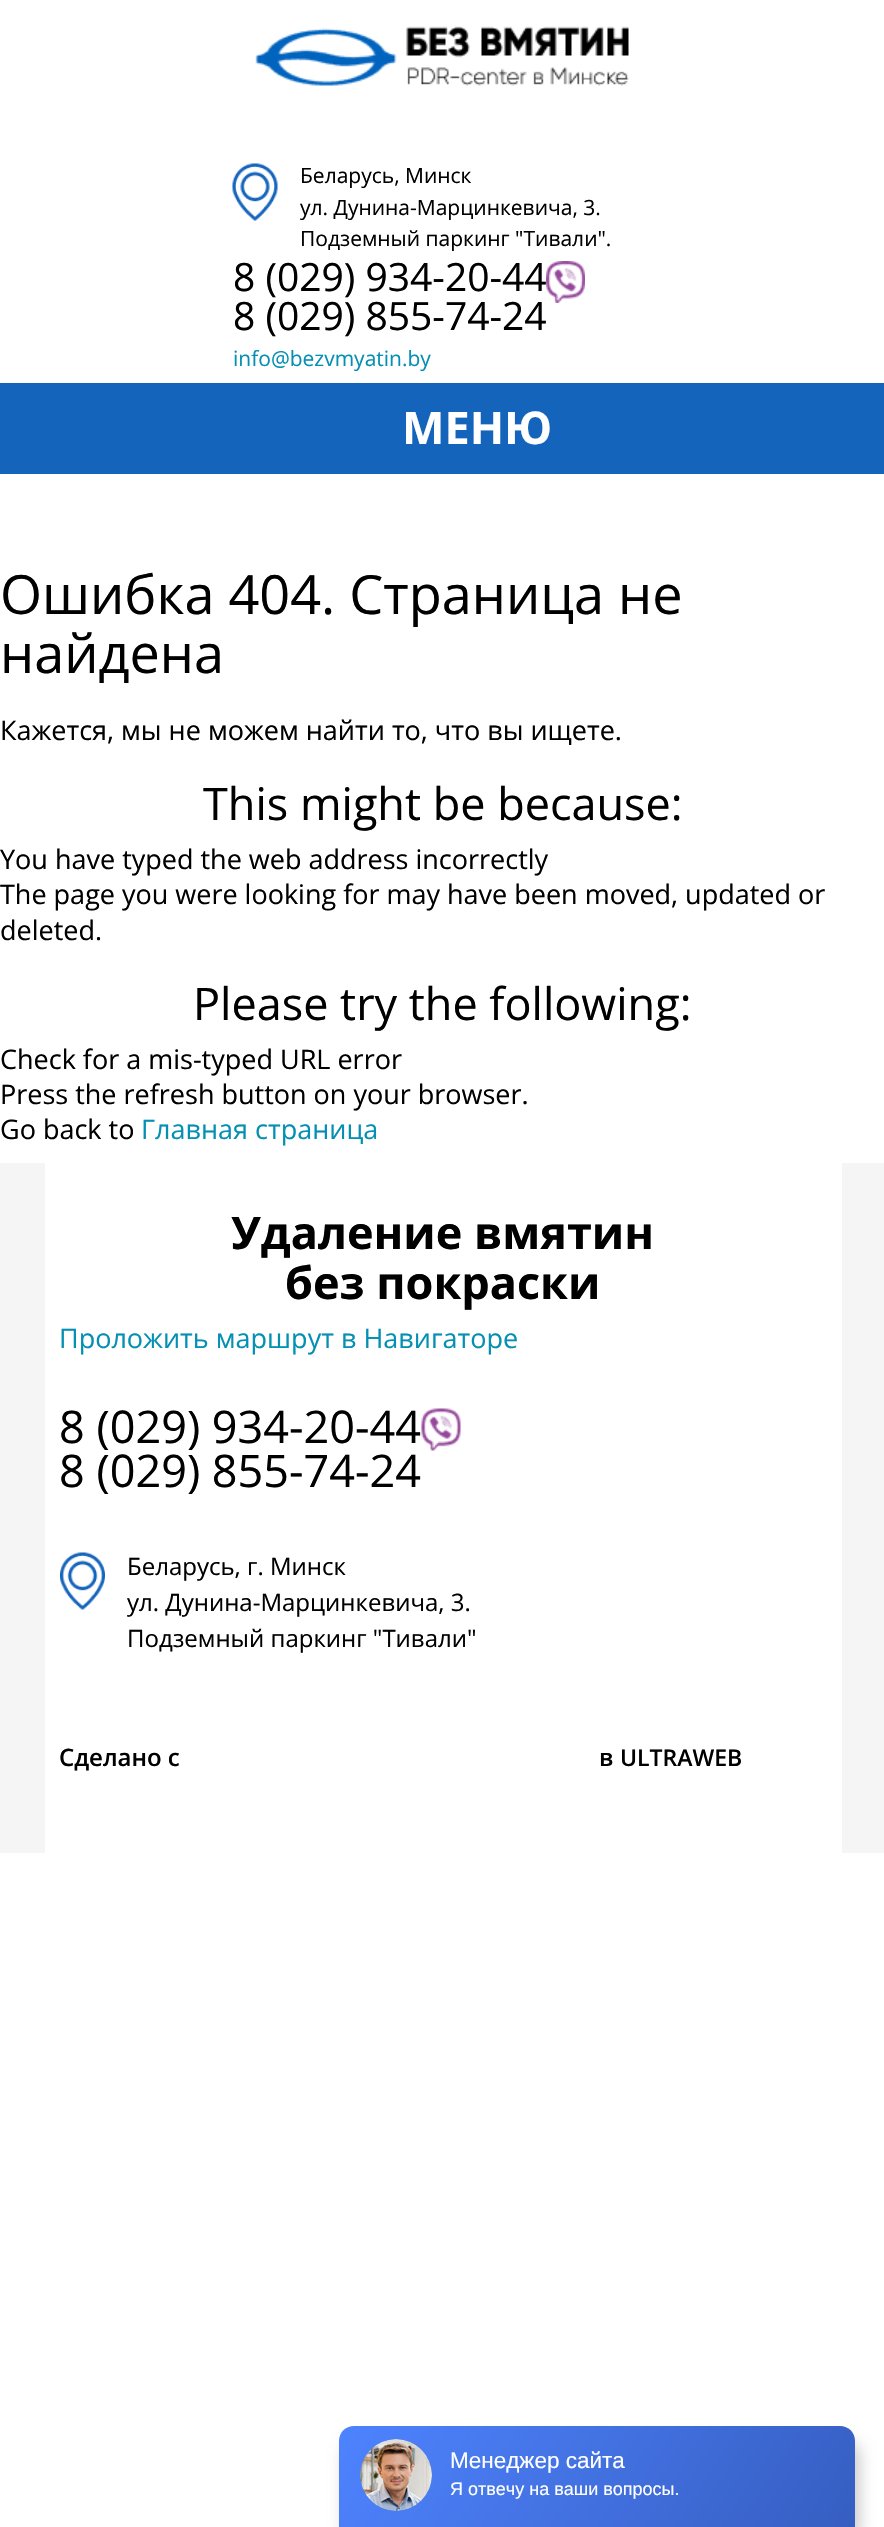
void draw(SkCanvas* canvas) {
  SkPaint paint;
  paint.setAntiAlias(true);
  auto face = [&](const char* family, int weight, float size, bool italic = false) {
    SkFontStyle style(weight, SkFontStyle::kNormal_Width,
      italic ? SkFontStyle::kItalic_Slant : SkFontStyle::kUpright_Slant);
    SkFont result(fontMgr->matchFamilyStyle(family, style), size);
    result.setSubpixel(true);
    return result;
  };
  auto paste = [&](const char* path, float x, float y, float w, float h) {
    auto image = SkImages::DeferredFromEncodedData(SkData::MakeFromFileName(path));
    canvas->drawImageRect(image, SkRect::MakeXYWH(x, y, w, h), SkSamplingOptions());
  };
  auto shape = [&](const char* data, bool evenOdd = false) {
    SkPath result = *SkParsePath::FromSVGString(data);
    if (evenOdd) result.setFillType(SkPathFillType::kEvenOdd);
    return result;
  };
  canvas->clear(0xffffffff);
  paste("img/1.png", 255, 26, 374, 60);
  paste("img/2.png", 232, 163, 46, 58);
  paste("img/3.png", 546, 261, 39, 42);
  {
    const struct { float x, y, w, h; SkColor color; } items[] = {
      {0, 383, 884, 91, 0xff1564bb},
      {0, 1163, 884, 690, 0xfff5f5f5},
      {45, 1163, 797, 690, 0xffffffff},
    };
    for (auto [x, y, w, h, color] : items) {
      paint.setColor(color);
      canvas->drawRect(SkRect::MakeXYWH(x, y, w, h), paint);
    }
  }
  paste("img/4.png", 421, 1408, 40, 43);
  paste("img/5.png", 60, 1552, 45, 58);
  paint.setColor(0x33000000);
  paint.setMaskFilter(SkMaskFilter::MakeBlur(kNormal_SkBlurStyle, 7.5f));
  canvas->drawRoundRect(SkRect::MakeXYWH(344, 2441, 516, 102), 15, 15, paint);
  paint.setMaskFilter(nullptr);
  {
    const SkColor colors[] = {0xff365ec1, 0xff4e83ff};
    const float stops[] = {0, 1};
    const SkPoint ends[] = {{802, 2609}, {392, 2344}};
    paint.setShader(SkGradientShader::MakeLinear(ends, colors, stops, 2, SkTileMode::kClamp));
    paint.setAlpha(255);
  }
  canvas->drawPath(shape("M354 2426H840C848.5 2426 855 2432.5 855 2441V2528H339V2441C339 2432.5 345.5 2426 354 2426Z"), paint);
  paste("img/6.png", 360, 2439, 72, 72);
  auto f0 = face("Open Sans", 400, 21);
  paint.setShader(nullptr);
  paint.setColor(0xff000000);
  {
    const struct { const char* s; float x, y; } items[] = {
      {"Беларусь, Минск", 300, 183},
      {"ул. Дунина-Марцинкевича, 3.", 300, 215},
      {"Подземный паркинг \"Тивали\".", 300, 246},
    };
    for (auto [s, x, y] : items) {
      canvas->drawString(s, x, y, f0, paint);
    }
  }
  auto f1 = face("Open Sans", 400, 39);
  canvas->drawString("8 (029) 934-20-44", 233, 291, f1, paint);
  canvas->drawString("8 (029) 855-74-24", 233, 330, f1, paint);
  paint.setColor(0xff0590b3);
  canvas->drawString("info@bezvmyatin.by", 233, 366, f0, paint);
  auto f2 = face("Open Sans", 700, 45);
  paint.setColor(0xffffffff);
  canvas->drawString("МЕНЮ", 402, 444, f2, paint);
  auto f3 = face("Open Sans", 400, 54);
  paint.setColor(0xff000000);
  canvas->drawString("Ошибка 404. Страница не", 0, 614, f3, paint);
  canvas->drawString("найдена", 0, 673, f3, paint);
  auto f4 = face("Open Sans", 400, 27);
  canvas->drawString("Кажется, мы не можем найти то, что вы ищете.", 0, 740, f4, paint);
  auto f5 = face("Open Sans", 400, 45);
  canvas->drawString("This might be because:", 203, 820, f5, paint);
  {
    const struct { const char* s; float x, y; } items[] = {
      {"You have typed the web address incorrectly", 0, 869},
      {"The page you were looking for may have been moved, updated or", 0, 904},
      {"deleted.", 0, 940},
    };
    for (auto [s, x, y] : items) {
      canvas->drawString(s, x, y, f4, paint);
    }
  }
  canvas->drawString("Please try the following:", 193, 1020, f5, paint);
  {
    const struct { const char* s; float x, y; } items[] = {
      {"Check for a mis-typed URL error", 0, 1069},
      {"Press the refresh button on your browser.", 0, 1104},
      {"Go back to", 0, 1139},
    };
    for (auto [s, x, y] : items) {
      canvas->drawString(s, x, y, f4, paint);
    }
  }
  paint.setColor(0xff0590b3);
  canvas->drawString("Главная страница", 141, 1139, f4, paint);
  paint.setColor(0xff000000);
  canvas->drawString("Удаление вмятин", 231, 1249, f2, paint);
  canvas->drawString("без покраски", 285, 1299, f2, paint);
  paint.setColor(0xff0590b3);
  canvas->drawString("Проложить маршрут в Навигаторе", 59, 1348, f4, paint);
  paint.setColor(0xff000000);
  canvas->drawString("8 (029) 934-20-44", 59, 1443, f5, paint);
  canvas->drawString("8 (029) 855-74-24", 59, 1487, f5, paint);
  auto f6 = face("Open Sans", 400, 24);
  {
    const struct { const char* s; float x, y; } items[] = {
      {"Беларусь, г. Минск", 127, 1575},
      {"ул. Дунина-Марцинкевича, 3.", 127, 1611},
      {"Подземный паркинг \"Тивали\"", 127, 1647},
    };
    for (auto [s, x, y] : items) {
      canvas->drawString(s, x, y, f6, paint);
    }
  }
  auto f7 = face("Open Sans", 600, 24);
  canvas->drawString("Сделано с", 59, 1766, f7, paint);
  canvas->drawString("в", 599, 1766, f7, paint);
  auto f8 = face("Open Sans", 600, 23);
  canvas->drawString("ULTRAWEB", 620, 1766, f8, paint);
  auto f9 = face("Liberation Sans", 400, 22.5f);
  paint.setColor(0xffffffff);
  canvas->drawString("Менеджер сайта", 450, 2468, f9, paint);
  auto f10 = face("Liberation Sans", 400, 18);
  canvas->drawString("Я отвечу на ваши вопросы.", 450, 2495, f10, paint);
}
